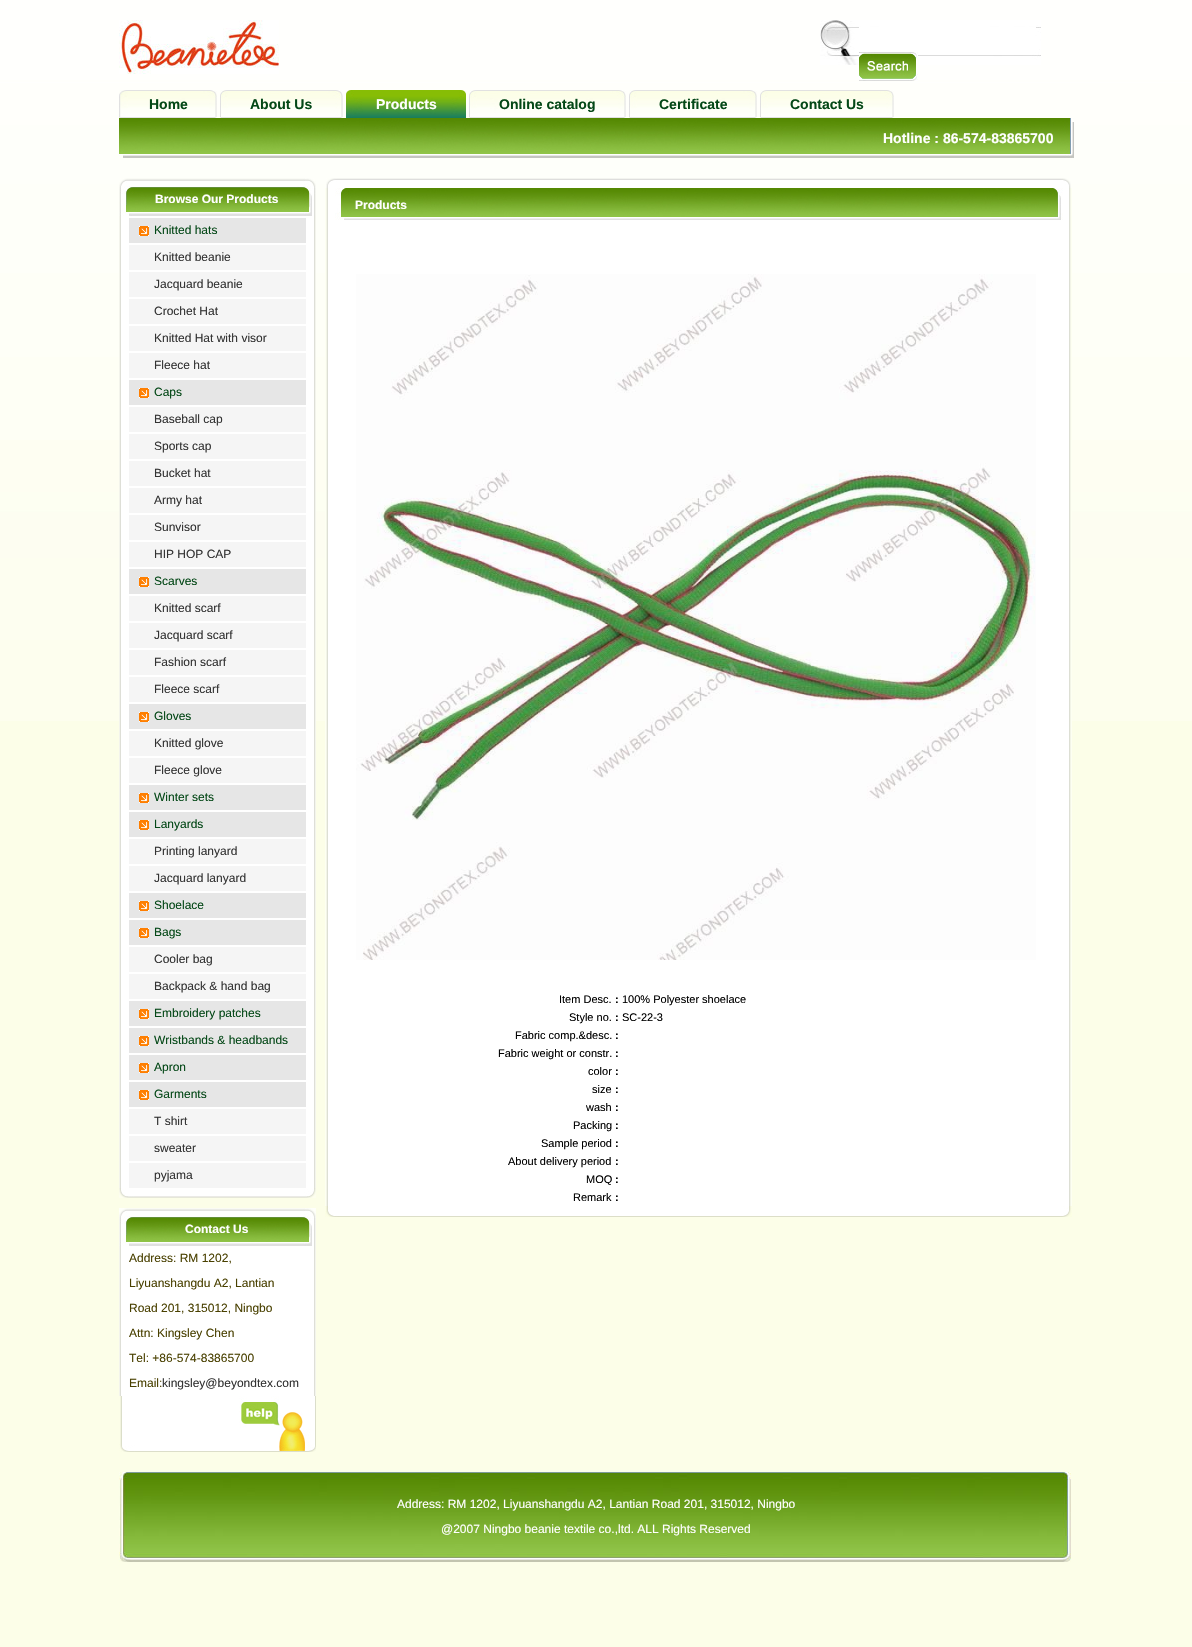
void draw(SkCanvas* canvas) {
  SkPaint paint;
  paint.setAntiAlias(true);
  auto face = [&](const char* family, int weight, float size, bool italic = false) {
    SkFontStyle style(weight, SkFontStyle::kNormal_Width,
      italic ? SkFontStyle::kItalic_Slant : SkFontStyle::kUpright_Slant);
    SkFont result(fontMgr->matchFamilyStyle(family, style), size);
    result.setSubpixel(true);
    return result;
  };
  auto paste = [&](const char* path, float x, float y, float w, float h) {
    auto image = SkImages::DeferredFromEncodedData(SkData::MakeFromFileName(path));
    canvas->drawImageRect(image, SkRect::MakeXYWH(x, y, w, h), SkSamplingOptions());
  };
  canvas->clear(0xfffcfee8);
  paste("img/1.png", 0, 0, 1192, 721);
  paste("img/2.png", 119, 20, 160, 54);
  paste("img/3.png", 820, 20, 221, 45);
  paint.setColor(0xffffffff);
  canvas->drawRect(SkRect::MakeXYWH(859, 27, 177, 1), paint);
  paste("img/4.png", 859, 52, 59, 29);
  paste("img/5.png", 119, 90, 9, 28);
  paste("img/6.png", 128, 90, 89, 28);
  paste("img/7.png", 220, 90, 8, 28);
  paste("img/8.png", 228, 90, 115, 28);
  paste("img/9.png", 346, 90, 8, 28);
  paste("img/10.png", 354, 90, 112, 28);
  paste("img/7.png", 469, 90, 8, 28);
  paste("img/11.png", 477, 90, 149, 28);
  paste("img/7.png", 629, 90, 8, 28);
  paste("img/12.png", 637, 90, 120, 28);
  paste("img/7.png", 760, 90, 8, 28);
  paste("img/13.png", 768, 90, 126, 28);
  paste("img/14.png", 119, 118, 955, 40);
  paste("img/15.png", 119, 178, 197, 38);
  paste("img/16.png", 119, 216, 197, 972);
  paste("img/17.png", 119, 1188, 197, 10);
  paint.setColor(0xffe6e6e6);
  canvas->drawRect(SkRect::MakeXYWH(129, 218, 177, 25), paint);
  paste("img/18.png", 139, 226, 10, 10);
  {
    const struct { float x, y, w, h; SkColor color; } items[] = {
      {129, 245, 177, 25, 0xfff5f5f5},
      {129, 272, 177, 25, 0xfff5f5f5},
      {129, 299, 177, 25, 0xfff5f5f5},
      {129, 326, 177, 25, 0xfff5f5f5},
      {129, 353, 177, 25, 0xfff5f5f5},
      {129, 380, 177, 25, 0xffe6e6e6},
    };
    for (auto [x, y, w, h, color] : items) {
      paint.setColor(color);
      canvas->drawRect(SkRect::MakeXYWH(x, y, w, h), paint);
    }
  }
  paste("img/18.png", 139, 388, 10, 10);
  {
    const struct { float x, y, w, h; SkColor color; } items[] = {
      {129, 407, 177, 25, 0xfff5f5f5},
      {129, 434, 177, 25, 0xfff5f5f5},
      {129, 461, 177, 25, 0xfff5f5f5},
      {129, 488, 177, 25, 0xfff5f5f5},
      {129, 515, 177, 25, 0xfff5f5f5},
      {129, 542, 177, 25, 0xfff5f5f5},
      {129, 569, 177, 25, 0xffe6e6e6},
    };
    for (auto [x, y, w, h, color] : items) {
      paint.setColor(color);
      canvas->drawRect(SkRect::MakeXYWH(x, y, w, h), paint);
    }
  }
  paste("img/18.png", 139, 577, 10, 10);
  {
    const struct { float x, y, w, h; SkColor color; } items[] = {
      {129, 596, 177, 25, 0xfff5f5f5},
      {129, 623, 177, 25, 0xfff5f5f5},
      {129, 650, 177, 25, 0xfff5f5f5},
      {129, 677, 177, 25, 0xfff5f5f5},
      {129, 704, 177, 25, 0xffe6e6e6},
    };
    for (auto [x, y, w, h, color] : items) {
      paint.setColor(color);
      canvas->drawRect(SkRect::MakeXYWH(x, y, w, h), paint);
    }
  }
  paste("img/18.png", 139, 712, 10, 10);
  {
    const struct { float x, y, w, h; SkColor color; } items[] = {
      {129, 731, 177, 25, 0xfff5f5f5},
      {129, 758, 177, 25, 0xfff5f5f5},
      {129, 785, 177, 25, 0xffe6e6e6},
    };
    for (auto [x, y, w, h, color] : items) {
      paint.setColor(color);
      canvas->drawRect(SkRect::MakeXYWH(x, y, w, h), paint);
    }
  }
  paste("img/18.png", 139, 793, 10, 10);
  canvas->drawRect(SkRect::MakeXYWH(129, 812, 177, 25), paint);
  paste("img/18.png", 139, 820, 10, 10);
  {
    const struct { float x, y, w, h; SkColor color; } items[] = {
      {129, 839, 177, 25, 0xfff5f5f5},
      {129, 866, 177, 25, 0xfff5f5f5},
      {129, 893, 177, 25, 0xffe6e6e6},
    };
    for (auto [x, y, w, h, color] : items) {
      paint.setColor(color);
      canvas->drawRect(SkRect::MakeXYWH(x, y, w, h), paint);
    }
  }
  paste("img/18.png", 139, 901, 10, 10);
  canvas->drawRect(SkRect::MakeXYWH(129, 920, 177, 25), paint);
  paste("img/18.png", 139, 928, 10, 10);
  {
    const struct { float x, y, w, h; SkColor color; } items[] = {
      {129, 947, 177, 25, 0xfff5f5f5},
      {129, 974, 177, 25, 0xfff5f5f5},
      {129, 1001, 177, 25, 0xffe6e6e6},
    };
    for (auto [x, y, w, h, color] : items) {
      paint.setColor(color);
      canvas->drawRect(SkRect::MakeXYWH(x, y, w, h), paint);
    }
  }
  paste("img/18.png", 139, 1009, 10, 10);
  canvas->drawRect(SkRect::MakeXYWH(129, 1028, 177, 25), paint);
  paste("img/18.png", 139, 1036, 10, 10);
  canvas->drawRect(SkRect::MakeXYWH(129, 1055, 177, 25), paint);
  paste("img/18.png", 139, 1063, 10, 10);
  canvas->drawRect(SkRect::MakeXYWH(129, 1082, 177, 25), paint);
  paste("img/18.png", 139, 1090, 10, 10);
  {
    const struct { float x, y, w, h; SkColor color; } items[] = {
      {129, 1109, 177, 25, 0xfff5f5f5},
      {129, 1136, 177, 25, 0xfff5f5f5},
      {129, 1163, 177, 25, 0xfff5f5f5},
    };
    for (auto [x, y, w, h, color] : items) {
      paint.setColor(color);
      canvas->drawRect(SkRect::MakeXYWH(x, y, w, h), paint);
    }
  }
  paste("img/15.png", 119, 1208, 197, 38);
  paste("img/19.png", 119, 1246, 197, 150);
  paste("img/20.png", 119, 1396, 197, 56);
  paste("img/21.png", 326, 178, 745, 10);
  paste("img/22.png", 325, 188, 747, 1018);
  paste("img/23.png", 335, 188, 728, 32);
  paste("img/24.png", 356, 274, 680, 686);
  paste("img/25.png", 325, 1206, 747, 11);
  paste("img/26.png", 119, 1472, 952, 90);
  auto f0 = face("Liberation Sans", 700, 14);
  paint.setColor(0xff044817);
  canvas->drawString("Home", 149, 109, f0, paint);
  canvas->drawString("About Us", 250, 109, f0, paint);
  paint.setColor(0xffffffff);
  canvas->drawString("Products", 376, 109, f0, paint);
  paint.setColor(0xff044817);
  {
    const struct { const char* s; float x, y; } items[] = {
      {"Online catalog", 499, 109},
      {"Certificate", 659, 109},
      {"Contact Us", 790, 109},
    };
    for (auto [s, x, y] : items) {
      canvas->drawString(s, x, y, f0, paint);
    }
  }
  paint.setColor(0xffffffff);
  canvas->drawString("Hotline : 86-574-83865700", 883, 143, f0, paint);
  auto f1 = face("Liberation Sans", 700, 12);
  canvas->drawString("Browse Our Products", 155, 203, f1, paint);
  auto f2 = face("Liberation Sans", 400, 12);
  paint.setColor(0xff044817);
  canvas->drawString("Knitted hats", 154, 234, f2, paint);
  paint.setColor(0xff333333);
  {
    const struct { const char* s; float x, y; } items[] = {
      {"Knitted beanie", 154, 261},
      {"Jacquard beanie", 154, 288},
      {"Crochet Hat", 154, 315},
      {"Knitted Hat with visor", 154, 342},
      {"Fleece hat", 154, 369},
    };
    for (auto [s, x, y] : items) {
      canvas->drawString(s, x, y, f2, paint);
    }
  }
  paint.setColor(0xff044817);
  canvas->drawString("Caps", 154, 396, f2, paint);
  paint.setColor(0xff333333);
  {
    const struct { const char* s; float x, y; } items[] = {
      {"Baseball cap", 154, 423},
      {"Sports cap", 154, 450},
      {"Bucket hat", 154, 477},
      {"Army hat", 154, 504},
      {"Sunvisor", 154, 531},
      {"HIP HOP CAP", 154, 558},
    };
    for (auto [s, x, y] : items) {
      canvas->drawString(s, x, y, f2, paint);
    }
  }
  paint.setColor(0xff044817);
  canvas->drawString("Scarves", 154, 585, f2, paint);
  paint.setColor(0xff333333);
  {
    const struct { const char* s; float x, y; } items[] = {
      {"Knitted scarf", 154, 612},
      {"Jacquard scarf", 154, 639},
      {"Fashion scarf", 154, 666},
      {"Fleece scarf", 154, 693},
    };
    for (auto [s, x, y] : items) {
      canvas->drawString(s, x, y, f2, paint);
    }
  }
  paint.setColor(0xff044817);
  canvas->drawString("Gloves", 154, 720, f2, paint);
  paint.setColor(0xff333333);
  canvas->drawString("Knitted glove", 154, 747, f2, paint);
  canvas->drawString("Fleece glove", 154, 774, f2, paint);
  paint.setColor(0xff044817);
  canvas->drawString("Winter sets", 154, 801, f2, paint);
  canvas->drawString("Lanyards", 154, 828, f2, paint);
  paint.setColor(0xff333333);
  canvas->drawString("Printing lanyard", 154, 855, f2, paint);
  canvas->drawString("Jacquard lanyard", 154, 882, f2, paint);
  paint.setColor(0xff044817);
  canvas->drawString("Shoelace", 154, 909, f2, paint);
  canvas->drawString("Bags", 154, 936, f2, paint);
  paint.setColor(0xff333333);
  canvas->drawString("Cooler bag", 154, 963, f2, paint);
  canvas->drawString("Backpack & hand bag", 154, 990, f2, paint);
  paint.setColor(0xff044817);
  {
    const struct { const char* s; float x, y; } items[] = {
      {"Embroidery patches", 154, 1017},
      {"Wristbands & headbands", 154, 1044},
      {"Apron", 154, 1071},
      {"Garments", 154, 1098},
    };
    for (auto [s, x, y] : items) {
      canvas->drawString(s, x, y, f2, paint);
    }
  }
  paint.setColor(0xff333333);
  {
    const struct { const char* s; float x, y; } items[] = {
      {"T shirt", 154, 1125},
      {"sweater", 154, 1152},
      {"pyjama", 154, 1179},
    };
    for (auto [s, x, y] : items) {
      canvas->drawString(s, x, y, f2, paint);
    }
  }
  paint.setColor(0xffffffff);
  canvas->drawString("Contact Us", 185, 1233, f1, paint);
  paint.setColor(0xff494000);
  {
    const struct { const char* s; float x, y; } items[] = {
      {"Address: RM 1202,", 129, 1262},
      {"Liyuanshangdu A2, Lantian", 129, 1287},
      {"Road 201, 315012, Ningbo", 129, 1312},
      {"Attn: Kingsley Chen", 129, 1337},
      {"Tel: +86-574-83865700", 129, 1362},
      {"Email:", 129, 1387},
    };
    for (auto [s, x, y] : items) {
      canvas->drawString(s, x, y, f2, paint);
    }
  }
  paint.setColor(0xff333333);
  canvas->drawString("kingsley@beyondtex.com", 162, 1387, f2, paint);
  paint.setColor(0xffffffff);
  canvas->drawString("Products", 355, 209, f1, paint);
  auto f3 = face("Liberation Sans", 400, 11);
  paint.setColor(0xff000000);
  canvas->drawString("Item Desc.", 559, 1003, f3, paint);
  auto f4 = face("Liberation Sans", 700, 11);
  canvas->drawString(":", 615, 1003, f4, paint);
  canvas->drawString("100% Polyester shoelace", 622, 1003, f3, paint);
  canvas->drawString("Style no.", 569, 1021, f3, paint);
  canvas->drawString(":", 615, 1021, f4, paint);
  canvas->drawString("SC-22-3", 622, 1021, f3, paint);
  canvas->drawString("Fabric comp.&desc.", 515, 1039, f3, paint);
  canvas->drawString(":", 615, 1039, f4, paint);
  canvas->drawString("Fabric weight or constr.", 498, 1057, f3, paint);
  canvas->drawString(":", 615, 1057, f4, paint);
  canvas->drawString("color", 588, 1075, f3, paint);
  canvas->drawString(":", 615, 1075, f4, paint);
  canvas->drawString("size", 592, 1093, f3, paint);
  canvas->drawString(":", 615, 1093, f4, paint);
  canvas->drawString("wash", 586, 1111, f3, paint);
  canvas->drawString(":", 615, 1111, f4, paint);
  canvas->drawString("Packing", 573, 1129, f3, paint);
  canvas->drawString(":", 615, 1129, f4, paint);
  canvas->drawString("Sample period", 541, 1147, f3, paint);
  canvas->drawString(":", 615, 1147, f4, paint);
  canvas->drawString("About delivery period", 508, 1165, f3, paint);
  canvas->drawString(":", 615, 1165, f4, paint);
  canvas->drawString("MOQ", 586, 1183, f3, paint);
  canvas->drawString(":", 615, 1183, f4, paint);
  canvas->drawString("Remark", 573, 1201, f3, paint);
  canvas->drawString(":", 615, 1201, f4, paint);
  paint.setColor(0xffffffff);
  canvas->drawString("Address: RM 1202, Liyuanshangdu A2, Lantian Road 201, 315012, Ningbo", 397, 1508, f2, paint);
  canvas->drawString("@2007 Ningbo beanie textile co.,ltd. ALL Rights Reserved", 441, 1533, f2, paint);
}
